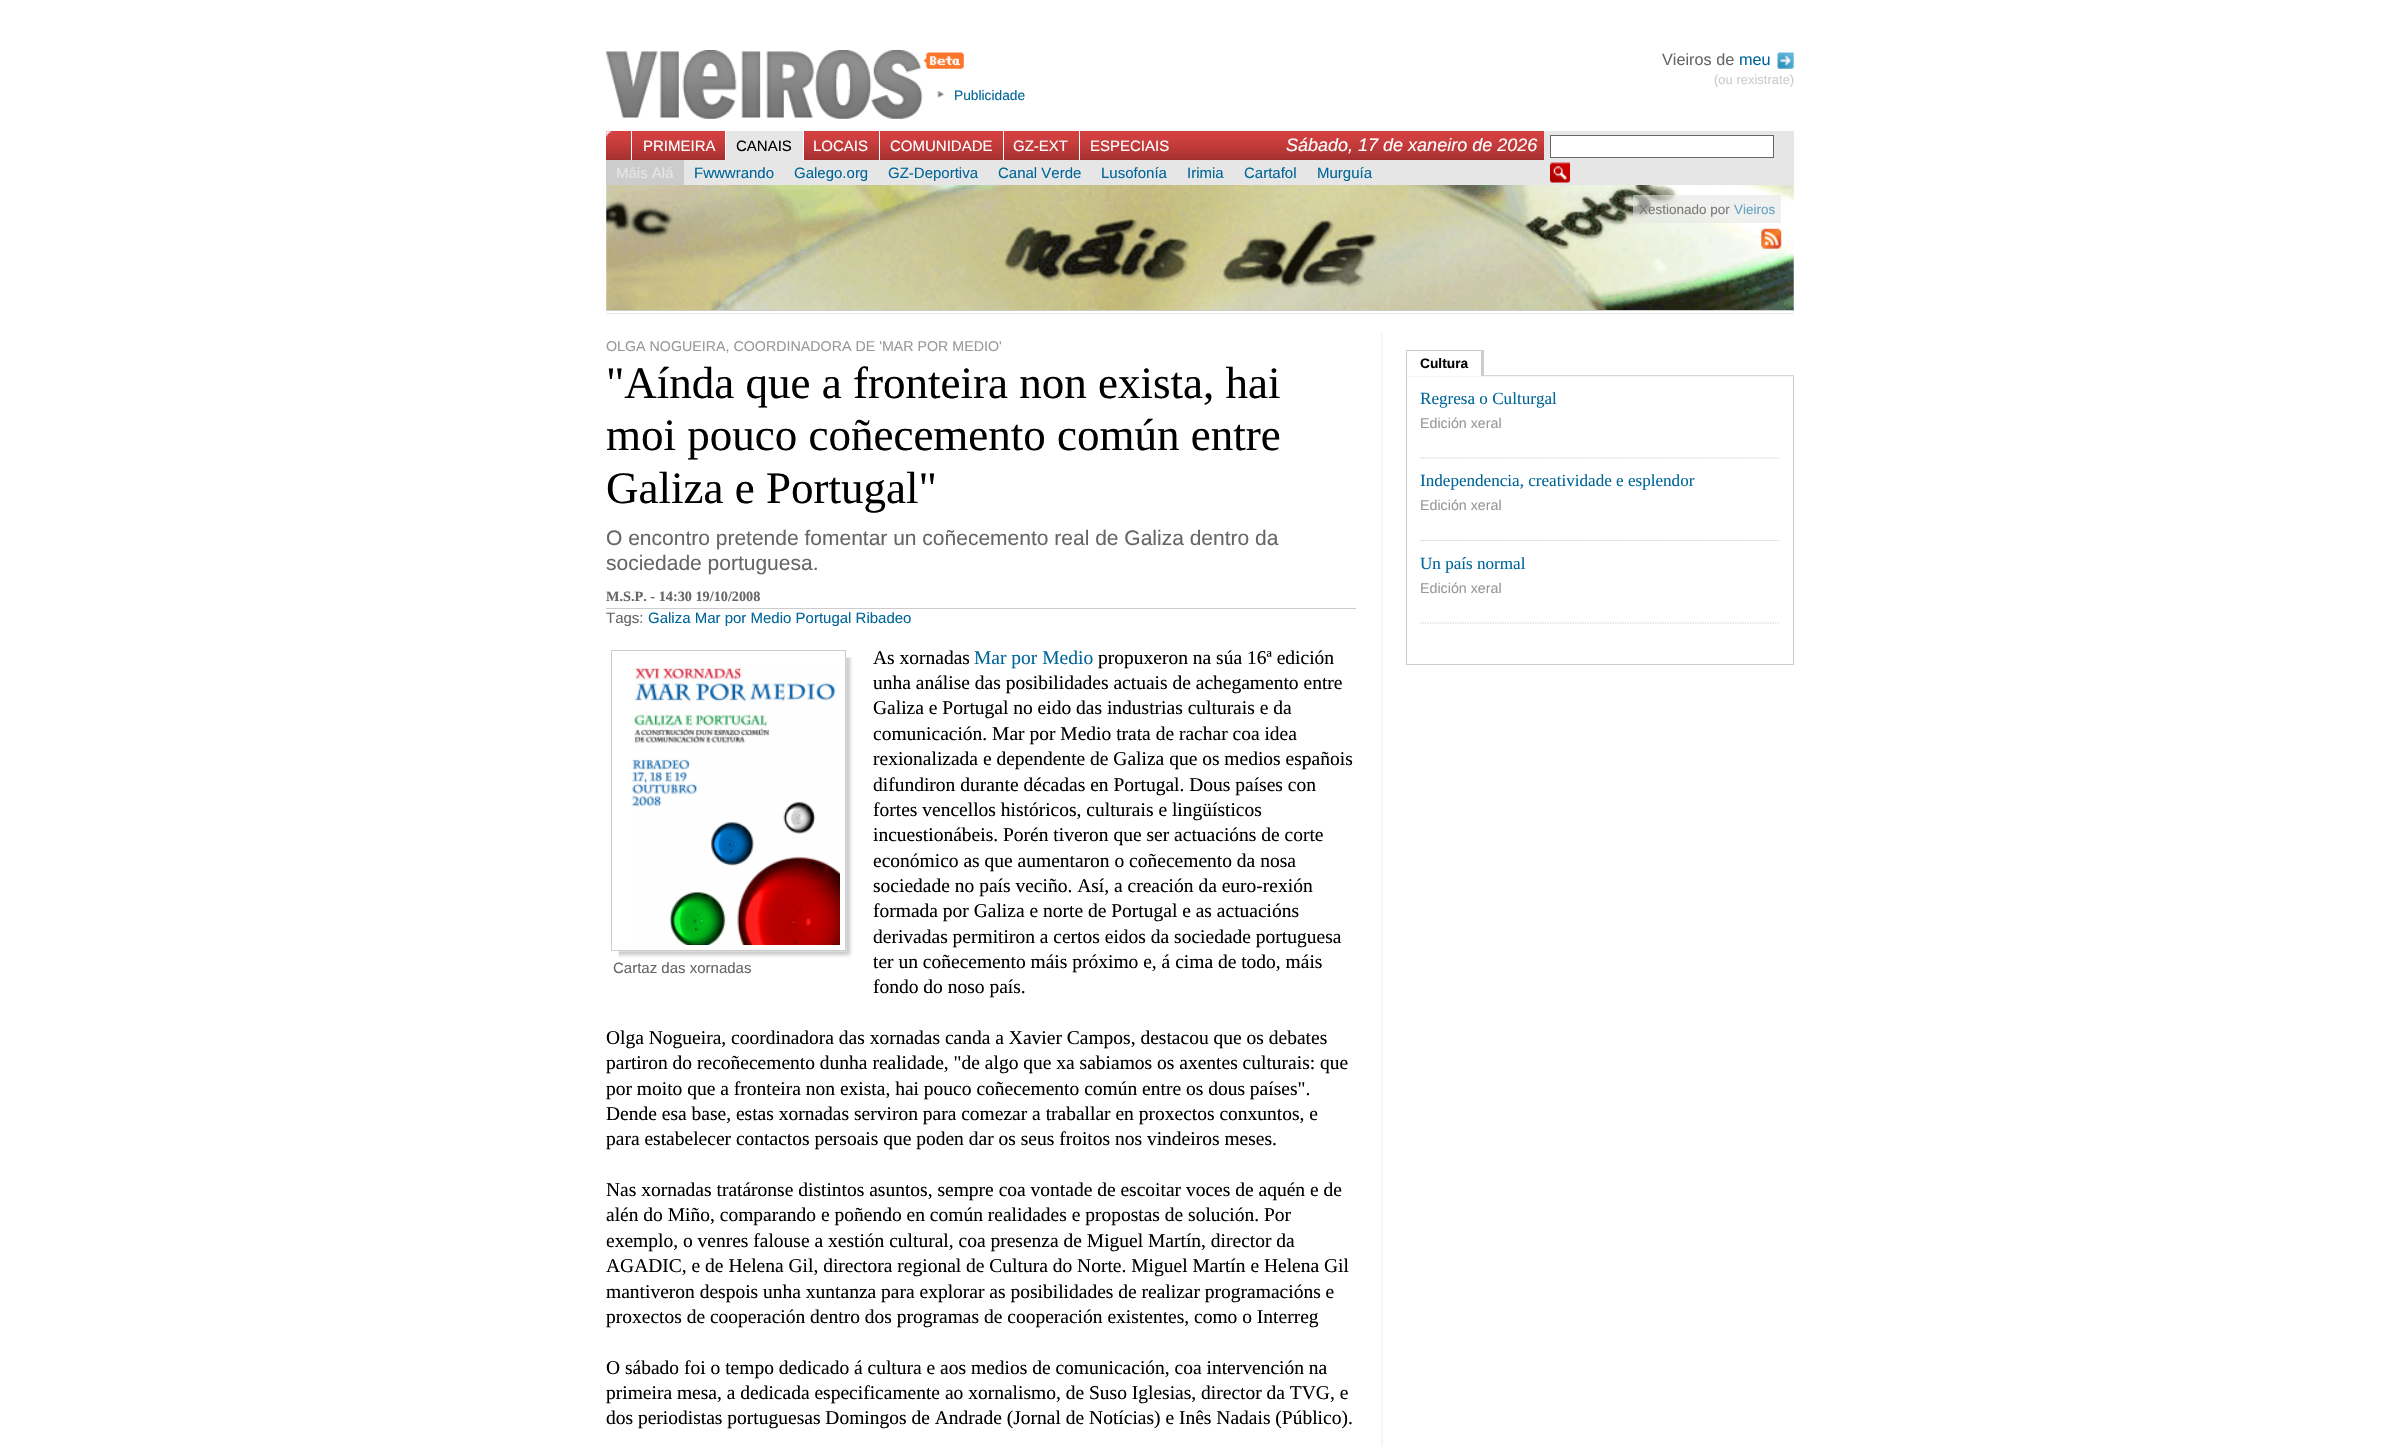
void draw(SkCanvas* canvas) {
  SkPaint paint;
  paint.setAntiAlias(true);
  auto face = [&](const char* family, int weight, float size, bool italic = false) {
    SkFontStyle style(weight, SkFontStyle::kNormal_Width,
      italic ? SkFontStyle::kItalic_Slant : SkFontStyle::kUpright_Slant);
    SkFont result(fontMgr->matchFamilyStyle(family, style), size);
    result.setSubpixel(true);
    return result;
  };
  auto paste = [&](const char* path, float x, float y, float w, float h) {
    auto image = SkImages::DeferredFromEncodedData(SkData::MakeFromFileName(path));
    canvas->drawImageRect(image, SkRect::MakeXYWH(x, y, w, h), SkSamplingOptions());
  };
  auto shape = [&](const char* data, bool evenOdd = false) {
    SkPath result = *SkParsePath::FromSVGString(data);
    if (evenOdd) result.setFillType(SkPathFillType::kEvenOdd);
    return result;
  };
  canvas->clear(0xffffffff);
  paste("img/1.png", 606, 50, 358, 69);
  paste("img/2.png", 1777, 52, 17, 17);
  paste("img/3.png", 937, 91, 8, 7);
  paint.setColor(0xffcc3333);
  canvas->drawRect(SkRect::MakeXYWH(606, 131, 938, 29), paint);
  paste("img/4.png", 606, 131, 938, 29);
  {
    const struct { float x, y, w, h; SkColor color; } items[] = {
      {631, 131, 1, 29, 0xffffffff},
      {725, 131, 1, 29, 0xffffffff},
      {726, 131, 77, 29, 0xffe6e6e6},
      {803, 131, 1, 29, 0xffffffff},
      {879, 131, 1, 29, 0xffffffff},
      {1003, 131, 1, 29, 0xffffffff},
      {1079, 131, 1, 29, 0xffffffff},
      {1544, 131, 250, 29, 0xffe6e6e6},
    };
    for (auto [x, y, w, h, color] : items) {
      paint.setColor(color);
      canvas->drawRect(SkRect::MakeXYWH(x, y, w, h), paint);
    }
  }
  paint.setColor(0xffffffff);
  canvas->drawRect(SkRect::MakeXYWH(1550.5f, 135.5f, 223, 22), paint);
  paint.setStroke(true);
  paint.setStrokeWidth(1);
  paint.setColor(0xff666666);
  canvas->drawRect(SkRect::MakeXYWH(1550.5f, 135.5f, 223, 22), paint);
  paint.setStroke(false);
  paint.setColor(0xffe6e6e6);
  canvas->drawRect(SkRect::MakeXYWH(684, 160, 1110, 25), paint);
  paste("img/5.png", 1550, 162, 20, 21);
  paint.setColor(0xffcccccc);
  canvas->drawRect(SkRect::MakeXYWH(606, 160, 78, 25), paint);
  paste("img/6.png", 606, 185, 1188, 125);
  {
    const struct { float x, y, w, h; SkColor color; } items[] = {
      {606, 313, 1188, 1, 0xffe6e6e6},
      {606, 310, 1188, 1, 0xffcccccc},
      {1633, 195, 148, 28, 0x99e6e6e6},
    };
    for (auto [x, y, w, h, color] : items) {
      paint.setColor(color);
      canvas->drawRect(SkRect::MakeXYWH(x, y, w, h), paint);
    }
  }
  paste("img/7.png", 1761, 228, 21, 21);
  paint.setStroke(true);
  paint.setStrokeWidth(1.2f);
  paint.setColor(0xffe6e6e6);
  paint.setPathEffect(SkDashPathEffect::Make({{1.25f, 1.25f}}, 0));
  canvas->drawPath(shape("M1382 332.5V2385"), paint);
  paint.setPathEffect(nullptr);
  paint.setStroke(false);
  paint.setColor(0xffcccccc);
  canvas->drawRect(SkRect::MakeXYWH(606, 608, 750, 1), paint);
  paste("img/8.png", 618, 657, 235, 301);
  paint.setStroke(true);
  paint.setStrokeWidth(1);
  canvas->drawRect(SkRect::MakeXYWH(611.5f, 650.5f, 234, 300), paint);
  paste("img/9.png", 632, 667, 208, 278);
  paste("img/10.png", 1407, 375, 387, 2);
  paint.setStroke(false);
  {
    const struct { float x, y, w, h; SkColor color; } items[] = {
      {1407, 375, 74, 1, 0xffffffff},
      {1406, 350, 78, 1, 0xffcccccc},
      {1481, 350, 3, 26, 0xffcccccc},
      {1406, 350, 1, 26, 0xffcccccc},
      {1793, 376, 1, 289, 0xffcccccc},
      {1406, 664, 388, 1, 0xffcccccc},
      {1406, 376, 1, 289, 0xffcccccc},
    };
    for (auto [x, y, w, h, color] : items) {
      paint.setColor(color);
      canvas->drawRect(SkRect::MakeXYWH(x, y, w, h), paint);
    }
  }
  paint.setStroke(true);
  paint.setStrokeWidth(1.2f);
  paint.setPathEffect(SkDashPathEffect::Make({{1.25f, 1.25f}}, 0));
  canvas->drawPath(shape("M1420 458H1780"), paint);
  paint.setPathEffect(nullptr);
  paint.setPathEffect(SkDashPathEffect::Make({{1.25f, 1.25f}}, 0));
  canvas->drawPath(shape("M1420 540.5H1780"), paint);
  paint.setPathEffect(nullptr);
  paint.setPathEffect(SkDashPathEffect::Make({{1.25f, 1.25f}}, 0));
  canvas->drawPath(shape("M1420 623H1780"), paint);
  paint.setPathEffect(nullptr);
  auto f0 = face("Liberation Sans", 400, 16.25f);
  paint.setStroke(false);
  paint.setColor(0xff666666);
  canvas->drawString("Vieiros de", 1662, 65, f0, paint);
  paint.setColor(0xff006699);
  canvas->drawString("meu", 1739, 65, f0, paint);
  auto f1 = face("Liberation Sans", 400, 13);
  paint.setColor(0xffcccccc);
  canvas->drawString("(ou rexistrate)", 1714, 84, f1, paint);
  auto f2 = face("Liberation Sans", 400, 13.75f);
  paint.setColor(0xff006699);
  canvas->drawString("Publicidade", 954, 100, f2, paint);
  auto f3 = face("Liberation Sans", 400, 15);
  paint.setColor(0xffffffff);
  canvas->drawString("PRIMEIRA", 643, 151, f3, paint);
  paint.setColor(0xff000000);
  canvas->drawString("CANAIS", 736, 151, f3, paint);
  paint.setColor(0xffffffff);
  {
    const struct { const char* s; float x, y; } items[] = {
      {"LOCAIS", 813, 151},
      {"COMUNIDADE", 890, 151},
      {"GZ-EXT", 1013, 151},
      {"ESPECIAIS", 1090, 151},
    };
    for (auto [s, x, y] : items) {
      canvas->drawString(s, x, y, f3, paint);
    }
  }
  auto f4 = face("Liberation Sans", 400, 18, true);
  canvas->drawString("Sábado, 17 de xaneiro de 2026", 1286, 151, f4, paint);
  paint.setColor(0xffe6e6e6);
  canvas->drawString("Máis Alá", 616, 178, f3, paint);
  paint.setColor(0xff006699);
  {
    const struct { const char* s; float x, y; } items[] = {
      {"Fwwwrando", 694, 178},
      {"Galego.org", 794, 178},
      {"GZ-Deportiva", 888, 178},
      {"Canal Verde", 998, 178},
      {"Lusofonía", 1101, 178},
      {"Irimia", 1187, 178},
      {"Cartafol", 1244, 178},
      {"Murguía", 1317, 178},
    };
    for (auto [s, x, y] : items) {
      canvas->drawString(s, x, y, f3, paint);
    }
  }
  auto f5 = face("Liberation Sans", 400, 13.5f);
  paint.setColor(0xff7a7b79);
  canvas->drawString("Xestionado por", 1639, 214, f5, paint);
  paint.setColor(0xff66a3c2);
  canvas->drawString("Vieiros", 1734, 214, f5, paint);
  auto f6 = face("Liberation Sans", 400, 14.25f);
  paint.setColor(0xff999999);
  canvas->drawString("OLGA NOGUEIRA, COORDINADORA DE 'MAR POR MEDIO'", 606, 351, f6, paint);
  auto f7 = face("Liberation Serif", 400, 45);
  paint.setColor(0xff000000);
  {
    const struct { const char* s; float x, y; } items[] = {
      {"\"Aínda que a fronteira non exista, hai", 606, 398},
      {"moi pouco coñecemento común entre", 606, 450},
      {"Galiza e Portugal\"", 606, 503},
    };
    for (auto [s, x, y] : items) {
      canvas->drawString(s, x, y, f7, paint);
    }
  }
  auto f8 = face("Liberation Sans", 400, 21);
  paint.setColor(0xff666666);
  canvas->drawString("O encontro pretende fomentar un coñecemento real de Galiza dentro da", 606, 545, f8, paint);
  canvas->drawString("sociedade portuguesa.", 606, 570, f8, paint);
  auto f9 = face("Liberation Serif", 700, 14.25f);
  canvas->drawString("M.S.P. - 14:30 19/10/2008", 606, 601, f9, paint);
  canvas->drawString("Tags:", 606, 623, f3, paint);
  paint.setColor(0xff006699);
  canvas->drawString("Galiza Mar por Medio Portugal Ribadeo", 648, 623, f3, paint);
  auto f10 = face("Liberation Serif", 400, 19.5f);
  paint.setColor(0xff000000);
  canvas->drawString("As xornadas", 873, 664, f10, paint);
  paint.setColor(0xff006699);
  canvas->drawString("Mar por Medio", 974, 664, f10, paint);
  paint.setColor(0xff000000);
  {
    const struct { const char* s; float x, y; } items[] = {
      {"propuxeron na súa 16ª edición", 1098, 664},
      {"unha análise das posibilidades actuais de achegamento entre", 873, 689},
      {"Galiza e Portugal no eido das industrias culturais e da", 873, 714},
      {"comunicación. Mar por Medio trata de rachar coa idea", 873, 740},
      {"rexionalizada e dependente de Galiza que os medios españois", 873, 765},
      {"difundiron durante décadas en Portugal. Dous países con", 873, 791},
      {"fortes vencellos históricos, culturais e lingüísticos", 873, 816},
      {"incuestionábeis. Porén tiveron que ser actuacións de corte", 873, 841},
      {"económico as que aumentaron o coñecemento da nosa", 873, 867},
      {"sociedade no país veciño. Así, a creación da euro-rexión", 873, 892},
      {"formada por Galiza e norte de Portugal e as actuacións", 873, 917},
      {"derivadas permitiron a certos eidos da sociedade portuguesa", 873, 943},
      {"ter un coñecemento máis próximo e, á cima de todo, máis", 873, 968},
      {"fondo do noso país.", 873, 993},
      {"Olga Nogueira, coordinadora das xornadas canda a Xavier Campos, destacou que os debates", 606, 1044},
      {"partiron do recoñecemento dunha realidade, \"de algo que xa sabiamos os axentes culturais: que", 606, 1069},
      {"por moito que a fronteira non exista, hai pouco coñecemento común entre os dous países\".", 606, 1095},
      {"Dende esa base, estas xornadas serviron para comezar a traballar en proxectos conxuntos, e", 606, 1120},
      {"para estabelecer contactos persoais que poden dar os seus froitos nos vindeiros meses.", 606, 1145},
      {"Nas xornadas tratáronse distintos asuntos, sempre coa vontade de escoitar voces de aquén e de", 606, 1196},
      {"alén do Miño, comparando e poñendo en común realidades e propostas de solución. Por", 606, 1221},
      {"exemplo, o venres falouse a xestión cultural, coa presenza de Miguel Martín, director da", 606, 1247},
      {"AGADIC, e de Helena Gil, directora regional de Cultura do Norte. Miguel Martín e Helena Gil", 606, 1272},
      {"mantiveron despois unha xuntanza para explorar as posibilidades de realizar programacións e", 606, 1298},
      {"proxectos de cooperación dentro dos programas de cooperación existentes, como o Interreg", 606, 1323},
      {"O sábado foi o tempo dedicado á cultura e aos medios de comunicación, coa intervención na", 606, 1374},
      {"primeira mesa, a dedicada especificamente ao xornalismo, de Suso Iglesias, director da TVG, e", 606, 1399},
      {"dos periodistas portuguesas Domingos de Andrade (Jornal de Notícias) e Inês Nadais (Público).", 606, 1424},
    };
    for (auto [s, x, y] : items) {
      canvas->drawString(s, x, y, f10, paint);
    }
  }
  paint.setColor(0xff666666);
  canvas->drawString("Cartaz das xornadas", 613, 973, f3, paint);
  auto f11 = face("Liberation Sans", 700, 13.75f);
  paint.setColor(0xff000000);
  canvas->drawString("Cultura", 1420, 368, f11, paint);
  auto f12 = face("Liberation Serif", 400, 17.1f);
  paint.setColor(0xff006699);
  canvas->drawString("Regresa o Culturgal", 1420, 404, f12, paint);
  paint.setColor(0xff999999);
  canvas->drawString("Edición xeral", 1420, 428, f6, paint);
  paint.setColor(0xff006699);
  canvas->drawString("Independencia, creatividade e esplendor", 1420, 486, f12, paint);
  paint.setColor(0xff999999);
  canvas->drawString("Edición xeral", 1420, 510, f6, paint);
  paint.setColor(0xff006699);
  canvas->drawString("Un país normal", 1420, 569, f12, paint);
  paint.setColor(0xff999999);
  canvas->drawString("Edición xeral", 1420, 593, f6, paint);
}
